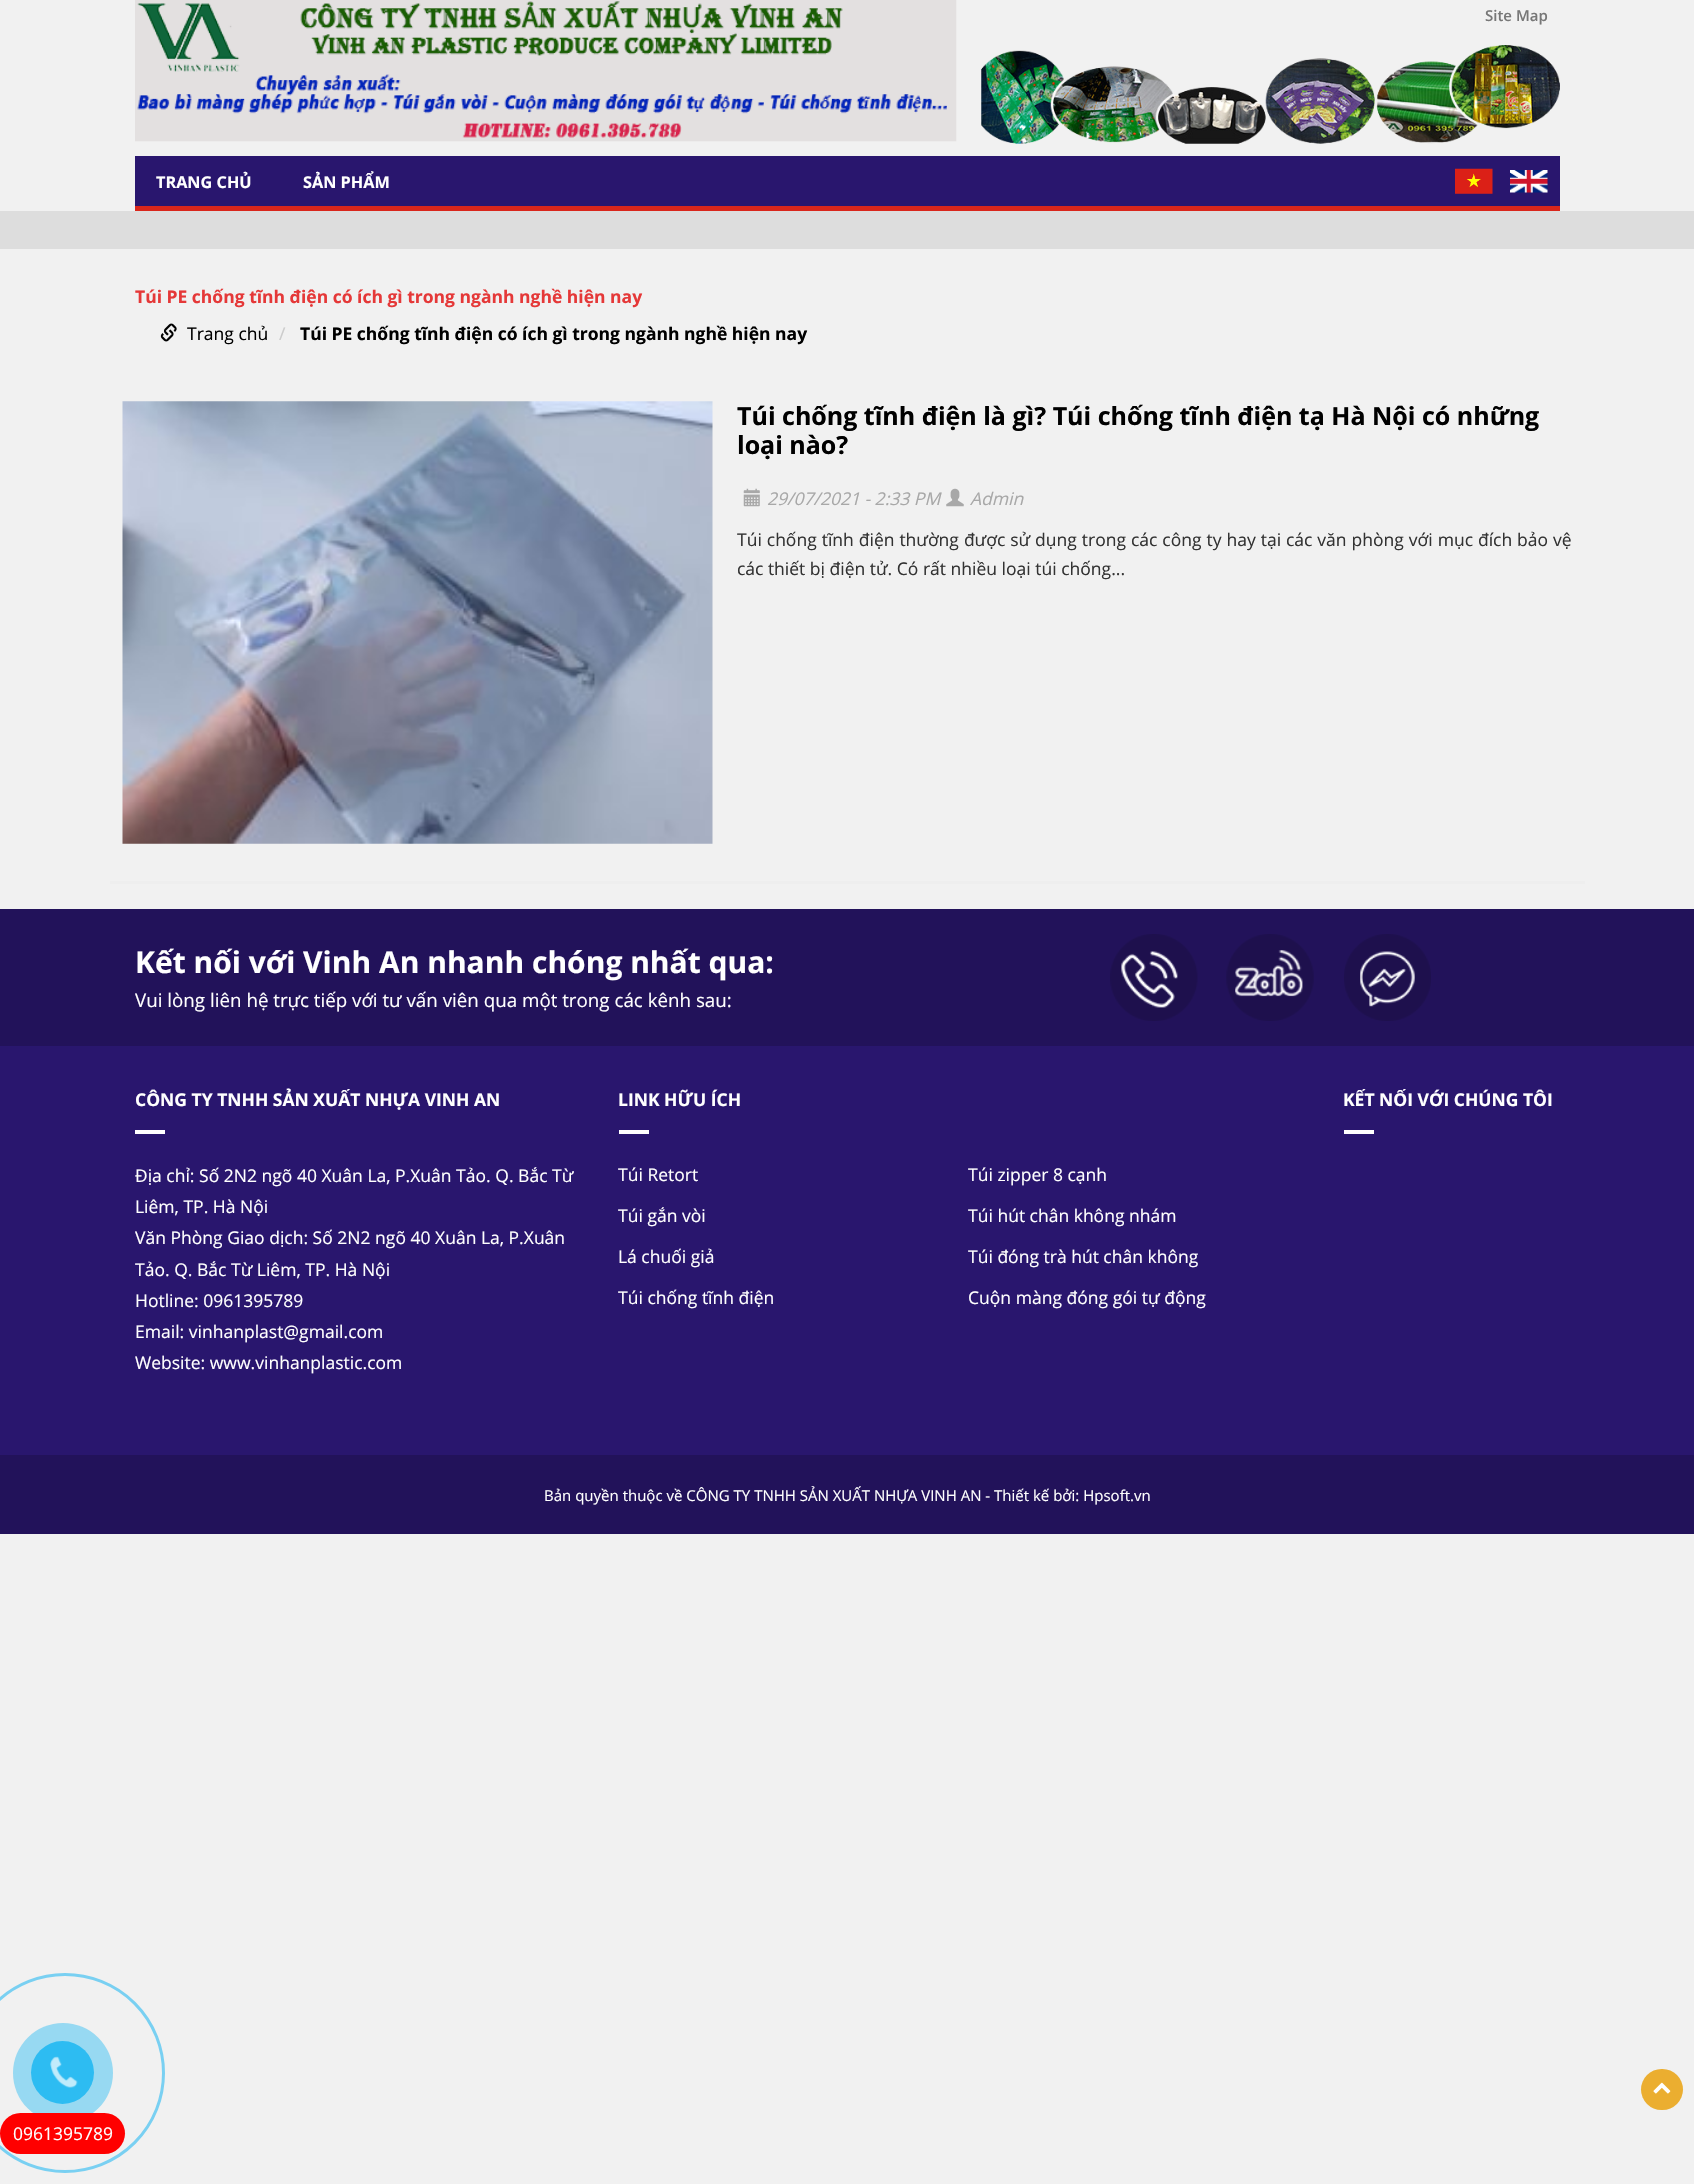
void draw(SkCanvas* canvas) {
  SkPaint paint;
  paint.setAntiAlias(true);
  auto face = [&](const char* family, int weight, float size, bool italic = false) {
    SkFontStyle style(weight, SkFontStyle::kNormal_Width,
      italic ? SkFontStyle::kItalic_Slant : SkFontStyle::kUpright_Slant);
    SkFont result(fontMgr->matchFamilyStyle(family, style), size);
    result.setSubpixel(true);
    return result;
  };
  auto writeSpaced = [&](const char* s, float x, float y, const SkFont& font, const SkPaint& ink, float letter, float word) {
    std::vector<SkGlyphID> glyphs(font.countText(s, strlen(s), SkTextEncoding::kUTF8));
    std::vector<float> xs(glyphs.size());
    font.textToGlyphs(s, strlen(s), SkTextEncoding::kUTF8, glyphs);
    font.getXPos(glyphs, xs, x);
    float extra = 0;
    for (size_t i = 0; i < glyphs.size(); i++) {
      xs[i] += extra;
      extra += letter + word * (glyphs[i] == font.unicharToGlyph(' '));
    }
    canvas->drawTextBlob(SkTextBlob::MakeFromPosHGlyphs(glyphs, xs, y, font), 0, 0, ink);
  };
  auto paste = [&](const char* path, float x, float y, float w, float h) {
    auto image = SkImages::DeferredFromEncodedData(SkData::MakeFromFileName(path));
    canvas->drawImageRect(image, SkRect::MakeXYWH(x, y, w, h), SkSamplingOptions());
  };
  canvas->clear(0xfff1f1f1);
  paste("img/1.png", 135, 0, 822, 142);
  paste("img/2.png", 981, 45, 579, 99);
  paint.setColor(0xff29166e);
  canvas->drawRect(SkRect::MakeXYWH(135, 156, 1425, 50), paint);
  paint.setColor(0xffd9261b);
  canvas->drawRect(SkRect::MakeXYWH(135, 206, 1425, 5), paint);
  paste("img/3.png", 1455, 168, 38, 26);
  paste("img/4.png", 1510, 170, 38, 23);
  paint.setColor(0xffdddddd);
  canvas->drawRect(SkRect::MakeXYWH(0, 211, 1694, 38), paint);
  paste("img/5.png", 160, 323, 17, 19);
  paint.setColor(0xffeeeeee);
  canvas->drawRect(SkRect::MakeXYWH(110, 881, 1475, 3), paint);
  paste("img/6.png", 122, 401, 591, 443);
  paste("img/7.png", 743, 488, 17, 19);
  paste("img/8.png", 946, 488, 18, 19);
  paint.setColor(0xff22125a);
  canvas->drawRect(SkRect::MakeXYWH(0, 909, 1694, 137), paint);
  paste("img/9.png", 1110, 934, 88, 87);
  paste("img/10.png", 1226, 934, 88, 87);
  paste("img/11.png", 1344, 934, 87, 87);
  {
    const struct { float x, y, w, h; SkColor color; } items[] = {
      {0, 1046, 1694, 409, 0xff29166e},
      {135, 1130, 30, 4, 0xffffffff},
      {619, 1130, 30, 4, 0xffffffff},
      {1344, 1130, 30, 4, 0xffffffff},
      {0, 1455, 1694, 79, 0xff22125a},
    };
    for (auto [x, y, w, h, color] : items) {
      paint.setColor(color);
      canvas->drawRect(SkRect::MakeXYWH(x, y, w, h), paint);
    }
  }
  paint.setColor(0xffebae30);
  canvas->drawRoundRect(SkRect::MakeXYWH(1641, 2069, 42, 41), 20.5f, 20.5f, paint);
  paste("img/12.png", 1653, 2082, 18, 12);
  paint.setStroke(true);
  paint.setStrokeWidth(3);
  paint.setColor(0xff79d0f2);
  canvas->drawCircle(65, 2073, 98.5f, paint);
  paint.setStroke(false);
  paint.setColor(0xff97d9f2);
  canvas->drawCircle(63, 2073, 50, paint);
  paint.setColor(0xff2dbcf2);
  canvas->drawCircle(62.5f, 2072.5f, 31.5f, paint);
  paste("img/13.png", 50, 2056, 28, 32);
  paint.setColor(0xffff0000);
  canvas->drawRoundRect(SkRect::MakeXYWH(0, 2113, 125, 41), 20.5f, 20.5f, paint);
  auto f0 = face("Open Sans", 600, 15);
  paint.setColor(0xff777777);
  canvas->drawString("Site Map", 1485, 21, f0, paint);
  auto f1 = face("Open Sans", 700, 16.25f);
  paint.setColor(0xffffffff);
  canvas->drawString("TRANG CHỦ", 156, 188, f1, paint);
  canvas->drawString("SẢN PHẨM", 303, 188, f1, paint);
  auto f2 = face("Open Sans", 700, 17.5f);
  paint.setColor(0xffe53838);
  canvas->drawString("Túi PE chống tĩnh điện có ích gì trong ngành nghề hiện nay", 135, 303, f2, paint);
  auto f3 = face("Open Sans", 400, 17.5f);
  paint.setColor(0xff000000);
  canvas->drawString("Trang chủ", 187, 340, f3, paint);
  paint.setColor(0xffcccccc);
  canvas->drawString("/", 279, 340, f3, paint);
  paint.setColor(0xff000000);
  canvas->drawString("Túi PE chống tĩnh điện có ích gì trong ngành nghề hiện nay", 300, 340, f2, paint);
  auto f4 = face("Open Sans", 700, 25);
  canvas->drawString("Túi chống tĩnh điện là gì? Túi chống tĩnh điện tạ Hà Nội có những", 737, 425, f4, paint);
  canvas->drawString("loại nào?", 737, 454, f4, paint);
  auto f5 = face("Open Sans", 400, 17.5f, true);
  paint.setColor(0xffa8a8a8);
  canvas->drawString("29/07/2021 - 2:33 PM", 767, 505, f5, paint);
  canvas->drawString("Admin", 970, 505, f5, paint);
  paint.setColor(0xff333333);
  writeSpaced("Túi chống tĩnh điện thường được sử dụng trong các công ty hay tại các văn phòng với mục đích bảo vệ", 737, 546, f3, paint, 0, 0.4f);
  canvas->drawString("các thiết bị điện tử. Có rất nhiều loại túi chống...", 737, 575, f3, paint);
  auto f6 = face("Open Sans", 700, 30);
  paint.setColor(0xffffffff);
  canvas->drawString("Kết nối với Vinh An nhanh chóng nhất qua:", 135, 973, f6, paint);
  auto f7 = face("Open Sans", 400, 18.75f);
  canvas->drawString("Vui lòng liên hệ trực tiếp với tư vấn viên qua một trong các kênh sau:", 135, 1007, f7, paint);
  canvas->drawString("CÔNG TY TNHH SẢN XUẤT NHỰA VINH AN", 135, 1106, f2, paint);
  {
    const struct { const char* s; float x, y; } items[] = {
      {"Địa chỉ: Số 2N2 ngõ 40 Xuân La, P.Xuân Tảo. Q. Bắc Từ", 135, 1182},
      {"Liêm, TP. Hà Nội", 135, 1213},
      {"Văn Phòng Giao dịch: Số 2N2 ngõ 40 Xuân La, P.Xuân", 135, 1244},
      {"Tảo. Q. Bắc Từ Liêm, TP. Hà Nội", 135, 1276},
      {"Hotline: 0961395789", 135, 1307},
      {"Email: vinhanplast@gmail.com", 135, 1338},
      {"Website: www.vinhanplastic.com", 135, 1369},
    };
    for (auto [s, x, y] : items) {
      canvas->drawString(s, x, y, f3, paint);
    }
  }
  canvas->drawString("LINK HỮU ÍCH", 618, 1106, f2, paint);
  {
    const struct { const char* s; float x, y; } items[] = {
      {"Túi Retort", 618, 1181},
      {"Túi zipper 8 cạnh", 968, 1181},
      {"Túi gắn vòi", 618, 1222},
      {"Túi hút chân không nhám", 968, 1222},
      {"Lá chuối giả", 618, 1263},
      {"Túi đóng trà hút chân không", 968, 1263},
      {"Túi chống tĩnh điện", 618, 1304},
      {"Cuộn màng đóng gói tự động", 968, 1304},
    };
    for (auto [s, x, y] : items) {
      canvas->drawString(s, x, y, f3, paint);
    }
  }
  canvas->drawString("KẾT NỐI VỚI CHÚNG TÔI", 1343, 1106, f2, paint);
  auto f8 = face("Open Sans", 400, 15);
  canvas->drawString("Bản quyền thuộc về CÔNG TY TNHH SẢN XUẤT NHỰA VINH AN - Thiết kế bởi: Hpsoft.vn", 544, 1501, f8, paint);
  canvas->drawString("0961395789", 13, 2140, f3, paint);
}
